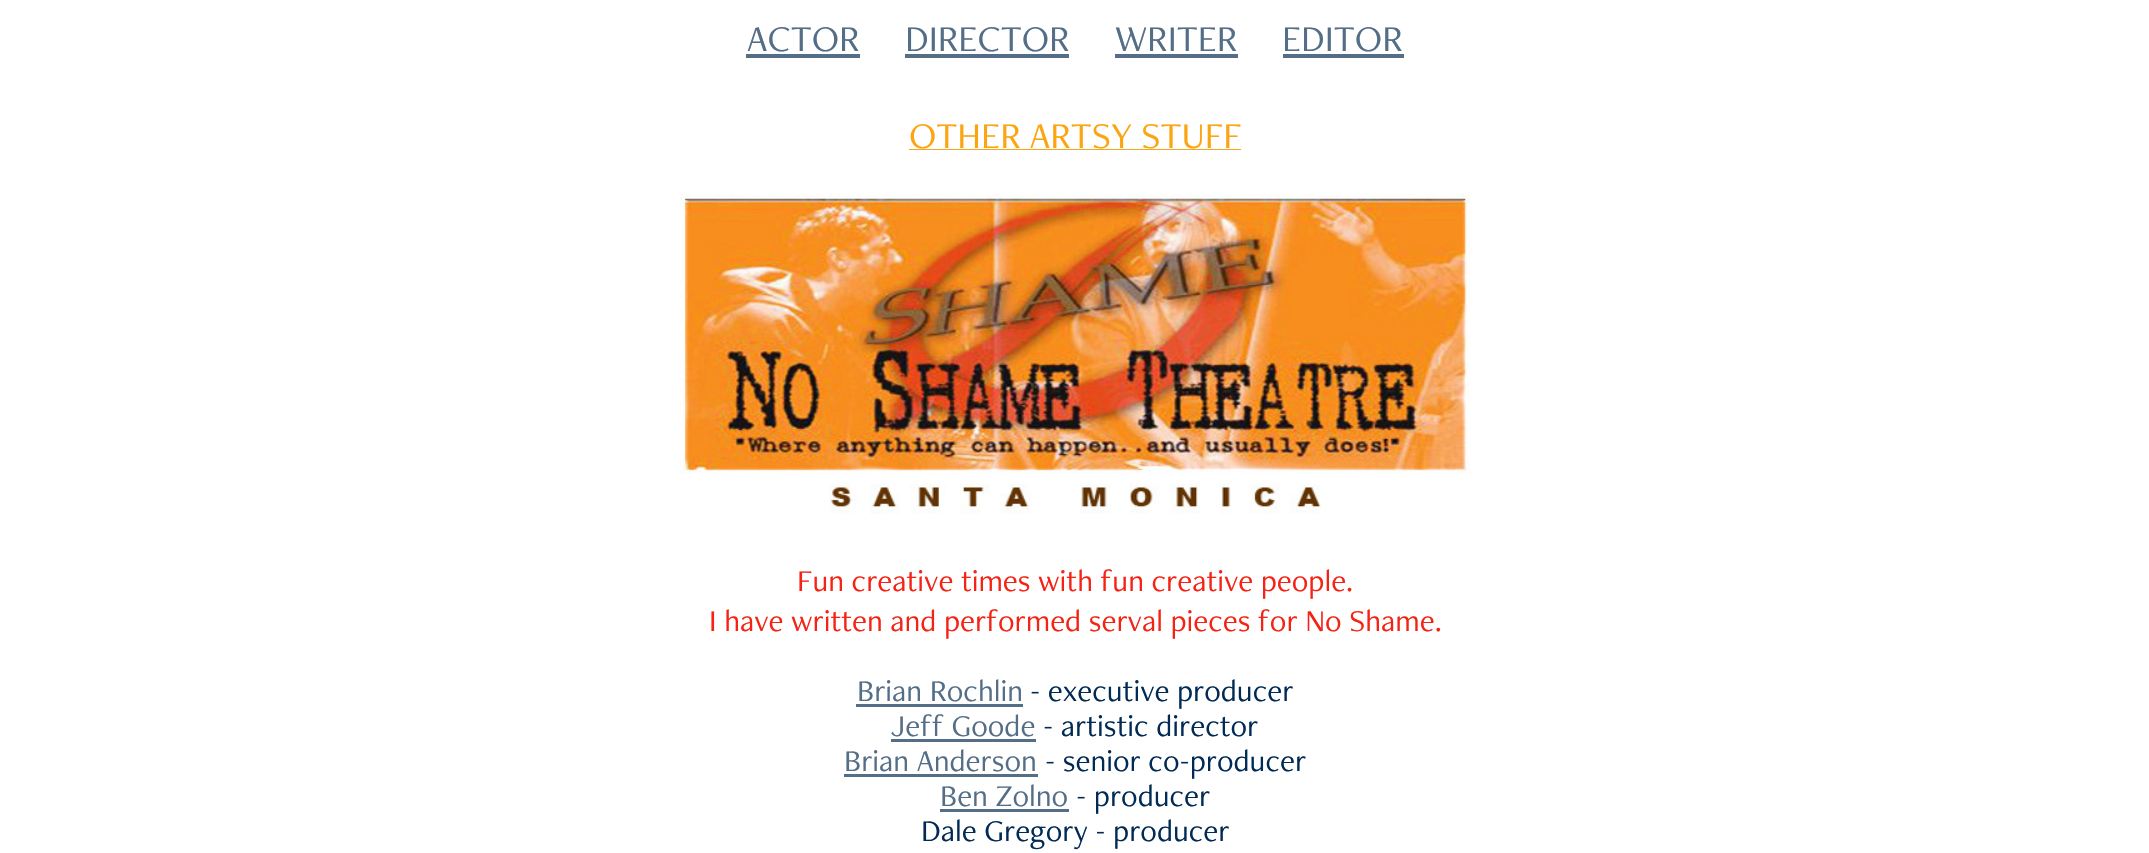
void draw(SkCanvas* canvas) {
  SkPaint paint;
  paint.setAntiAlias(true);
  auto face = [&](const char* family, int weight, float size, bool italic = false) {
    SkFontStyle style(weight, SkFontStyle::kNormal_Width,
      italic ? SkFontStyle::kItalic_Slant : SkFontStyle::kUpright_Slant);
    SkFont result(fontMgr->matchFamilyStyle(family, style), size);
    result.setSubpixel(true);
    return result;
  };
  auto paste = [&](const char* path, float x, float y, float w, float h) {
    auto image = SkImages::DeferredFromEncodedData(SkData::MakeFromFileName(path));
    canvas->drawImageRect(image, SkRect::MakeXYWH(x, y, w, h), SkSamplingOptions());
  };
  canvas->clear(0xffffffff);
  {
    const struct { float x, y, w, h; SkColor color; } items[] = {
      {746, 54, 114, 4, 0xff546e87},
      {905, 54, 164, 4, 0xff546e87},
      {1115, 54, 123, 4, 0xff546e87},
      {1283, 54, 121, 4, 0xff546e87},
      {909, 149, 332, 1, 0xfffba512},
    };
    for (auto [x, y, w, h, color] : items) {
      paint.setColor(color);
      canvas->drawRect(SkRect::MakeXYWH(x, y, w, h), paint);
    }
  }
  paste("img/1.png", 680, 193, 790, 321);
  {
    const struct { float x, y, w, h; SkColor color; } items[] = {
      {856, 704, 167, 3, 0xff546e87},
      {891, 739, 145, 3, 0xff546e87},
      {844, 774, 194, 3, 0xff546e87},
      {940, 809, 129, 3, 0xff546e87},
    };
    for (auto [x, y, w, h, color] : items) {
      paint.setColor(color);
      canvas->drawRect(SkRect::MakeXYWH(x, y, w, h), paint);
    }
  }
  auto f0 = face("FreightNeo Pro", 400, 37.5f);
  {
    const struct { const char* s; float x, y; } items[] = {
      {"ACTOR", 747, 51},
      {"DIRECTOR", 905, 51},
      {"WRITER", 1115, 51},
      {"EDITOR", 1282, 51},
    };
    for (auto [s, x, y] : items) {
      canvas->drawString(s, x, y, f0, paint);
    }
  }
  paint.setColor(0xfffba512);
  canvas->drawString("OTHER ARTSY STUFF", 909, 148, f0, paint);
  auto f1 = face("FreightNeo Pro", 400, 31.25f);
  paint.setColor(0xfff42314);
  canvas->drawString("Fun creative times with fun creative people.", 797, 591, f1, paint);
  canvas->drawString("I have written and performed serval pieces for No Shame.", 709, 631, f1, paint);
  paint.setColor(0xff546e87);
  canvas->drawString("Brian Rochlin", 857, 701, f1, paint);
  paint.setColor(0xff012b55);
  canvas->drawString("- executive producer", 1030, 701, f1, paint);
  paint.setColor(0xff546e87);
  canvas->drawString("Jeff Goode", 891, 736, f1, paint);
  paint.setColor(0xff012b55);
  canvas->drawString("- artistic director", 1043, 736, f1, paint);
  paint.setColor(0xff546e87);
  canvas->drawString("Brian Anderson", 844, 771, f1, paint);
  paint.setColor(0xff012b55);
  canvas->drawString("- senior co-producer", 1045, 771, f1, paint);
  paint.setColor(0xff546e87);
  canvas->drawString("Ben Zolno", 940, 806, f1, paint);
  paint.setColor(0xff012b55);
  canvas->drawString("- producer", 1076, 806, f1, paint);
  canvas->drawString("Dale Gregory - producer", 921, 841, f1, paint);
}
